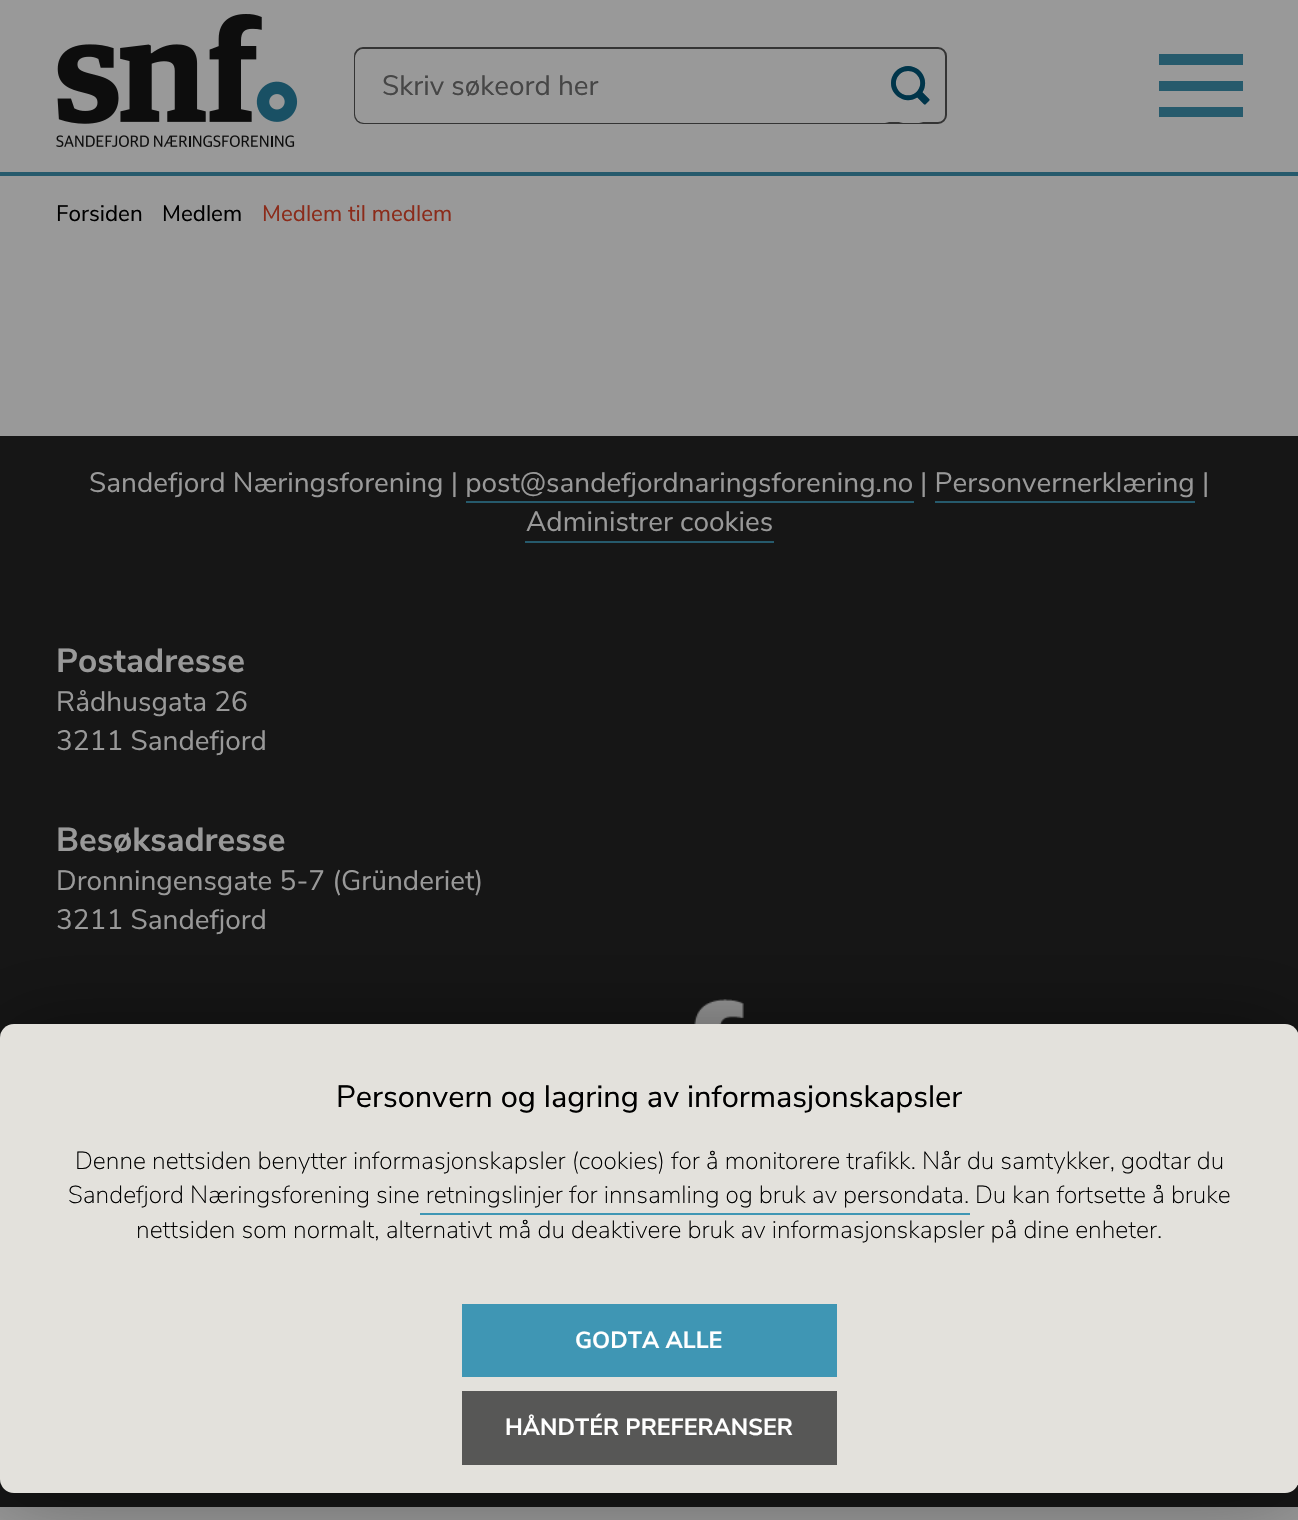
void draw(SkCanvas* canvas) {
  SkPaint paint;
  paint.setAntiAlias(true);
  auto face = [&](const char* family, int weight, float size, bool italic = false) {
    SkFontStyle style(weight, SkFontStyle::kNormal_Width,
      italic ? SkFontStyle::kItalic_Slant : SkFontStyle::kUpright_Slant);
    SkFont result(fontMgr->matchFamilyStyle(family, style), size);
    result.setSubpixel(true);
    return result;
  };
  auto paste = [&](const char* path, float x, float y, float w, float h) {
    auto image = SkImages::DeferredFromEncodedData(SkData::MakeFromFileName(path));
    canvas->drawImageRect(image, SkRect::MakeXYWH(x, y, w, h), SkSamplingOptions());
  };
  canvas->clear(0xff999999);
  paint.setColor(0xff265a6c);
  canvas->drawRect(SkRect::MakeXYWH(0, 172, 1298, 4), paint);
  paste("img/1.png", 56, 14, 242, 133);
  paint.setStroke(true);
  paint.setStrokeWidth(2);
  paint.setColor(0xff343434);
  canvas->drawRoundRect(SkRect::MakeXYWH(355, 48, 591, 75), 8, 8, paint);
  paint.setStroke(false);
  paint.setColor(0xff999999);
  canvas->drawRoundRect(SkRect::MakeXYWH(355, 49, 539, 74), 9, 9, paint);
  canvas->drawRoundRect(SkRect::MakeXYWH(894, 49, 34, 74), 9, 9, paint);
  {
    const struct { float x, y, w, h; SkColor color; } items[] = {
      {1159, 54, 84, 11, 0xff265a6c},
      {1159, 81, 84, 10, 0xff265a6c},
      {1159, 107, 84, 10, 0xff265a6c},
      {0, 436, 1298, 1071, 0xff161616},
      {466, 501, 448, 2, 0xff265a6c},
      {935, 501, 260, 2, 0xff265a6c},
      {525, 541, 249, 2, 0xff265a6c},
    };
    for (auto [x, y, w, h, color] : items) {
      paint.setColor(color);
      canvas->drawRect(SkRect::MakeXYWH(x, y, w, h), paint);
    }
  }
  paste("img/2.png", 694, 999, 50, 25);
  paint.setColor(0x66000000);
  paint.setMaskFilter(SkMaskFilter::MakeBlur(kNormal_SkBlurStyle, 44));
  canvas->drawRoundRect(SkRect::MakeXYWH(0, 1024, 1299, 469), 14, 14, paint);
  paint.setMaskFilter(nullptr);
  paint.setColor(0xffe3e1dc);
  canvas->drawRoundRect(SkRect::MakeXYWH(0, 1024, 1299, 469), 14, 14, paint);
  {
    const struct { float x, y, w, h; SkColor color; } items[] = {
      {420, 1213, 550, 2, 0xff3f96b4},
      {462, 1304, 375, 73, 0xff3f96b4},
      {462, 1391, 375, 74, 0xff575756},
    };
    for (auto [x, y, w, h, color] : items) {
      paint.setColor(color);
      canvas->drawRect(SkRect::MakeXYWH(x, y, w, h), paint);
    }
  }
  auto f0 = face("Nunito Sans", 400, 28);
  paint.setColor(0xff464646);
  canvas->drawString("Skriv søkeord her", 382, 95, f0, paint);
  auto f1 = face("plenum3", 400, 39);
  paint.setColor(0xff00354a);
  canvas->drawString("0", 891, 105, f1, paint);
  auto f2 = face("Nunito Sans", 400, 22.5f);
  paint.setColor(0xff000000);
  canvas->drawString("Forsiden", 56, 221, f2, paint);
  canvas->drawString("Medlem", 162, 221, f2, paint);
  paint.setColor(0xff8b2b1a);
  canvas->drawString("Medlem til medlem", 262, 221, f2, paint);
  paint.setColor(0xff999999);
  {
    const struct { const char* s; float x, y; } items[] = {
      {"Sandefjord Næringsforening | post@sandefjordnaringsforening.no", 89, 492},
      {"| Personvernerklæring", 920, 492},
      {"|", 1202, 492},
      {"Administrer cookies", 526, 531},
    };
    for (auto [s, x, y] : items) {
      canvas->drawString(s, x, y, f0, paint);
    }
  }
  auto f3 = face("Nunito Sans", 700, 33.5f);
  canvas->drawString("Postadresse", 56, 672, f3, paint);
  canvas->drawString("Rådhusgata 26", 56, 711, f0, paint);
  canvas->drawString("3211 Sandefjord", 56, 750, f0, paint);
  canvas->drawString("Besøksadresse", 56, 851, f3, paint);
  canvas->drawString("Dronningensgate 5-7 (Gründeriet)", 56, 890, f0, paint);
  canvas->drawString("3211 Sandefjord", 56, 929, f0, paint);
  auto f4 = face("Nunito Sans", 400, 30.8f);
  paint.setColor(0xff000000);
  canvas->drawString("Personvern og lagring av informasjonskapsler", 336, 1107, f4, paint);
  auto f5 = face("Nunito Sans", 200, 24.65f);
  {
    const struct { const char* s; float x, y; } items[] = {
      {"Denne nettsiden benytter informasjonskapsler (cookies) for å monitorere trafikk. Når du samtykker, godtar du", 75, 1169},
      {"Sandefjord Næringsforening sine retningslinjer for innsamling og bruk av persondata.", 68, 1203},
      {"Du kan fortsette å bruke", 975, 1203},
      {"nettsiden som normalt, alternativt må du deaktivere bruk av informasjonskapsler på dine enheter.", 136, 1238},
    };
    for (auto [s, x, y] : items) {
      canvas->drawString(s, x, y, f5, paint);
    }
  }
  auto f6 = face("Nunito Sans", 700, 23.25f);
  paint.setColor(0xffffffff);
  canvas->drawString("GODTA ALLE", 575, 1348, f6, paint);
  canvas->drawString("HÅNDTÉR PREFERANSER", 505, 1435, f6, paint);
}
